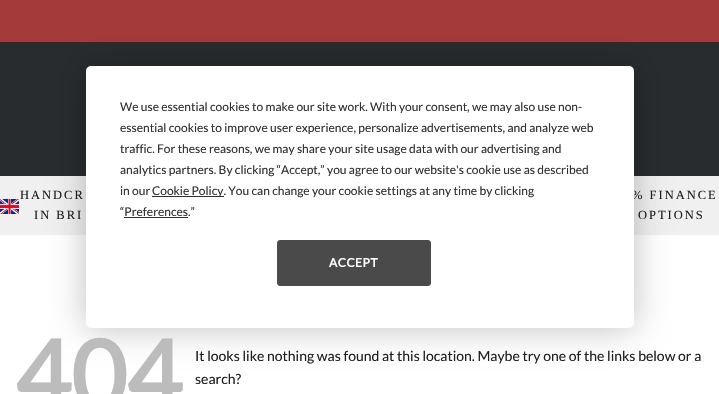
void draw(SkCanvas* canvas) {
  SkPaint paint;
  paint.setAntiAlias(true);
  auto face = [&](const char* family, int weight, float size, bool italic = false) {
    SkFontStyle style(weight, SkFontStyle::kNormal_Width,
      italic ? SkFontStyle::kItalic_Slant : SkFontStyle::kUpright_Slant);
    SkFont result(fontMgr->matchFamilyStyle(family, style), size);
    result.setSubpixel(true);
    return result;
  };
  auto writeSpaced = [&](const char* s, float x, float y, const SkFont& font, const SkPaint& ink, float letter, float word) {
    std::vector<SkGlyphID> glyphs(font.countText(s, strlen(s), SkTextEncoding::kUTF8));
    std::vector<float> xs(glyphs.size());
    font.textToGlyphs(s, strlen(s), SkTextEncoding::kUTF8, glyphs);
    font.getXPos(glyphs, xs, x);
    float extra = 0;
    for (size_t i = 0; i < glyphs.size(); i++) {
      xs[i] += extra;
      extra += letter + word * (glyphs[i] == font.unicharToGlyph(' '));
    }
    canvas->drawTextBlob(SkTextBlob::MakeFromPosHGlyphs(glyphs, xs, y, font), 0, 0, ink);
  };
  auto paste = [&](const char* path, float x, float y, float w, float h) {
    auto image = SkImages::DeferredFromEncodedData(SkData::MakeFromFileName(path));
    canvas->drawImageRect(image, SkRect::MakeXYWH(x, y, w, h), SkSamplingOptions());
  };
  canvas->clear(0xffffffff);
  {
    const struct { float x, y, w, h; SkColor color; } items[] = {
      {0, 42, 719, 134, 0xff292c2e},
      {0, 0, 719, 42, 0xffa53a3a},
      {0, 176, 719, 59, 0xfff0f0f0},
    };
    for (auto [x, y, w, h, color] : items) {
      paint.setColor(color);
      canvas->drawRect(SkRect::MakeXYWH(x, y, w, h), paint);
    }
  }
  paint.setColor(0x40000000);
  paint.setMaskFilter(SkMaskFilter::MakeBlur(kNormal_SkBlurStyle, 17.5f));
  canvas->drawRoundRect(SkRect::MakeXYWH(86, 66, 548, 262), 5, 5, paint);
  paint.setMaskFilter(nullptr);
  paste("img/1.png", 0, 199, 19, 15);
  auto f0 = face("Liberation Serif", 400, 12.5f);
  paint.setColor(0xff1e1e1e);
  {
    const struct { const char* s; float x, y; } items[] = {
      {"HANDCR", 20, 199},
      {"IN BRI", 34, 219},
      {"% FINANCE", 632, 199},
    };
    for (auto [s, x, y] : items) {
      writeSpaced(s, x, y, f0, paint, 2, 0);
    }
  }
  paint.setColor(0xffffffff);
  canvas->drawRoundRect(SkRect::MakeXYWH(86, 66, 548, 262), 5, 5, paint);
  paint.setColor(0xff4a4a4a);
  canvas->drawRoundRect(SkRect::MakeXYWH(277.5f, 240.5f, 153, 45), 2.5f, 2.5f, paint);
  paint.setStroke(true);
  paint.setStrokeWidth(1);
  canvas->drawRoundRect(SkRect::MakeXYWH(277.5f, 240.5f, 153, 45), 2.5f, 2.5f, paint);
  auto f1 = face("Lato", 700, 12);
  paint.setStroke(false);
  paint.setColor(0xffffffff);
  writeSpaced("ACCEPT", 329, 267, f1, paint, 0.5f, 0);
  paint.setColor(0xff303030);
  canvas->drawRect(SkRect::MakeXYWH(124, 217, 64, 1), paint);
  auto f2 = face("Lato", 400, 12);
  canvas->drawString("“Preferences.”", 120, 216, f2, paint);
  canvas->drawRect(SkRect::MakeXYWH(152, 196, 72, 1), paint);
  {
    const struct { const char* s; float x, y; } items[] = {
      {"Cookie Policy. You can change your cookie settings at any time by clicking", 152, 195},
      {"in our", 120, 195},
      {"analytics partners. By clicking “Accept,” you agree to our website's cookie use as described", 120, 174},
      {"traffic. For these reasons, we may share your site usage data with our advertising and", 120, 153},
      {"essential cookies to improve user experience, personalize advertisements, and analyze web", 120, 132},
      {"We use essential cookies to make our site work. With your consent, we may also use non-", 120, 111},
    };
    for (auto [s, x, y] : items) {
      canvas->drawString(s, x, y, f2, paint);
    }
  }
  paint.setColor(0xff1e1e1e);
  writeSpaced("OPTIONS", 638, 219, f0, paint, 2, 0);
  auto f3 = face("Lato", 700, 96);
  paint.setColor(0xffbcbcbc);
  canvas->drawString("404", 15, 410, f3, paint);
  auto f4 = face("Lato", 400, 14);
  paint.setColor(0xff1e1e1e);
  canvas->drawString("It looks like nothing was found at this location. Maybe try one of the links below or a", 195, 361, f4, paint);
  canvas->drawString("search?", 195, 384, f4, paint);
}
